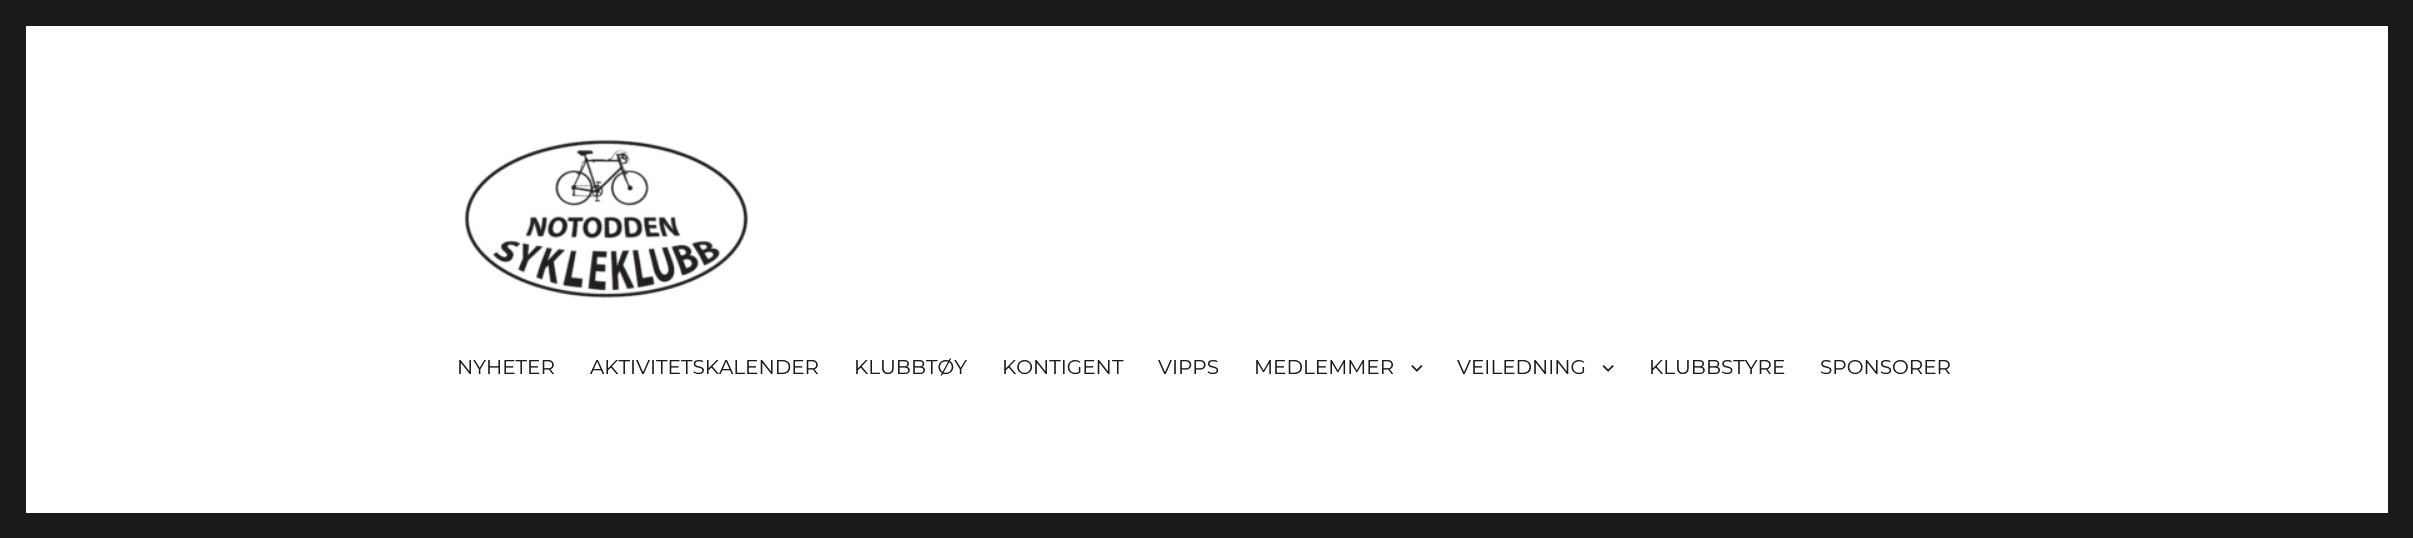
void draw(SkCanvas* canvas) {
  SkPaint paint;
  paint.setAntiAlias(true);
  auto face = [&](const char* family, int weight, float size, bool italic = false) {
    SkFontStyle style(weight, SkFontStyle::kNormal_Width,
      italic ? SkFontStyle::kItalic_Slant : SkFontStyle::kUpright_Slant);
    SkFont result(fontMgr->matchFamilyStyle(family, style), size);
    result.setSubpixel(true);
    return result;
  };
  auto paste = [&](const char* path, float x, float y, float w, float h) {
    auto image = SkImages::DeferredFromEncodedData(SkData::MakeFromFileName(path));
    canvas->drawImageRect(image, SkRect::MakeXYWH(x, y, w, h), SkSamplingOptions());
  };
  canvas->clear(0xff1a1a1a);
  paint.setColor(0xffffffff);
  canvas->drawRect(SkRect::MakeXYWH(26, 26, 2362, 487), paint);
  paste("img/1.png", 464, 139, 285, 160);
  paste("img/2.png", 1411, 365, 12, 7);
  paste("img/3.png", 1602, 365, 12, 7);
  auto f0 = face("Montserrat", 400, 20);
  paint.setColor(0xff1a1a1a);
  {
    const struct { const char* s; float x, y; } items[] = {
      {"NYHETER", 457, 374},
      {"AKTIVITETSKALENDER", 590, 374},
      {"KLUBBTØY", 854, 374},
      {"KONTIGENT", 1002, 374},
      {"VIPPS", 1158, 374},
      {"MEDLEMMER", 1254, 374},
      {"VEILEDNING", 1457, 374},
      {"KLUBBSTYRE", 1649, 374},
      {"SPONSORER", 1820, 374},
    };
    for (auto [s, x, y] : items) {
      canvas->drawString(s, x, y, f0, paint);
    }
  }
}
